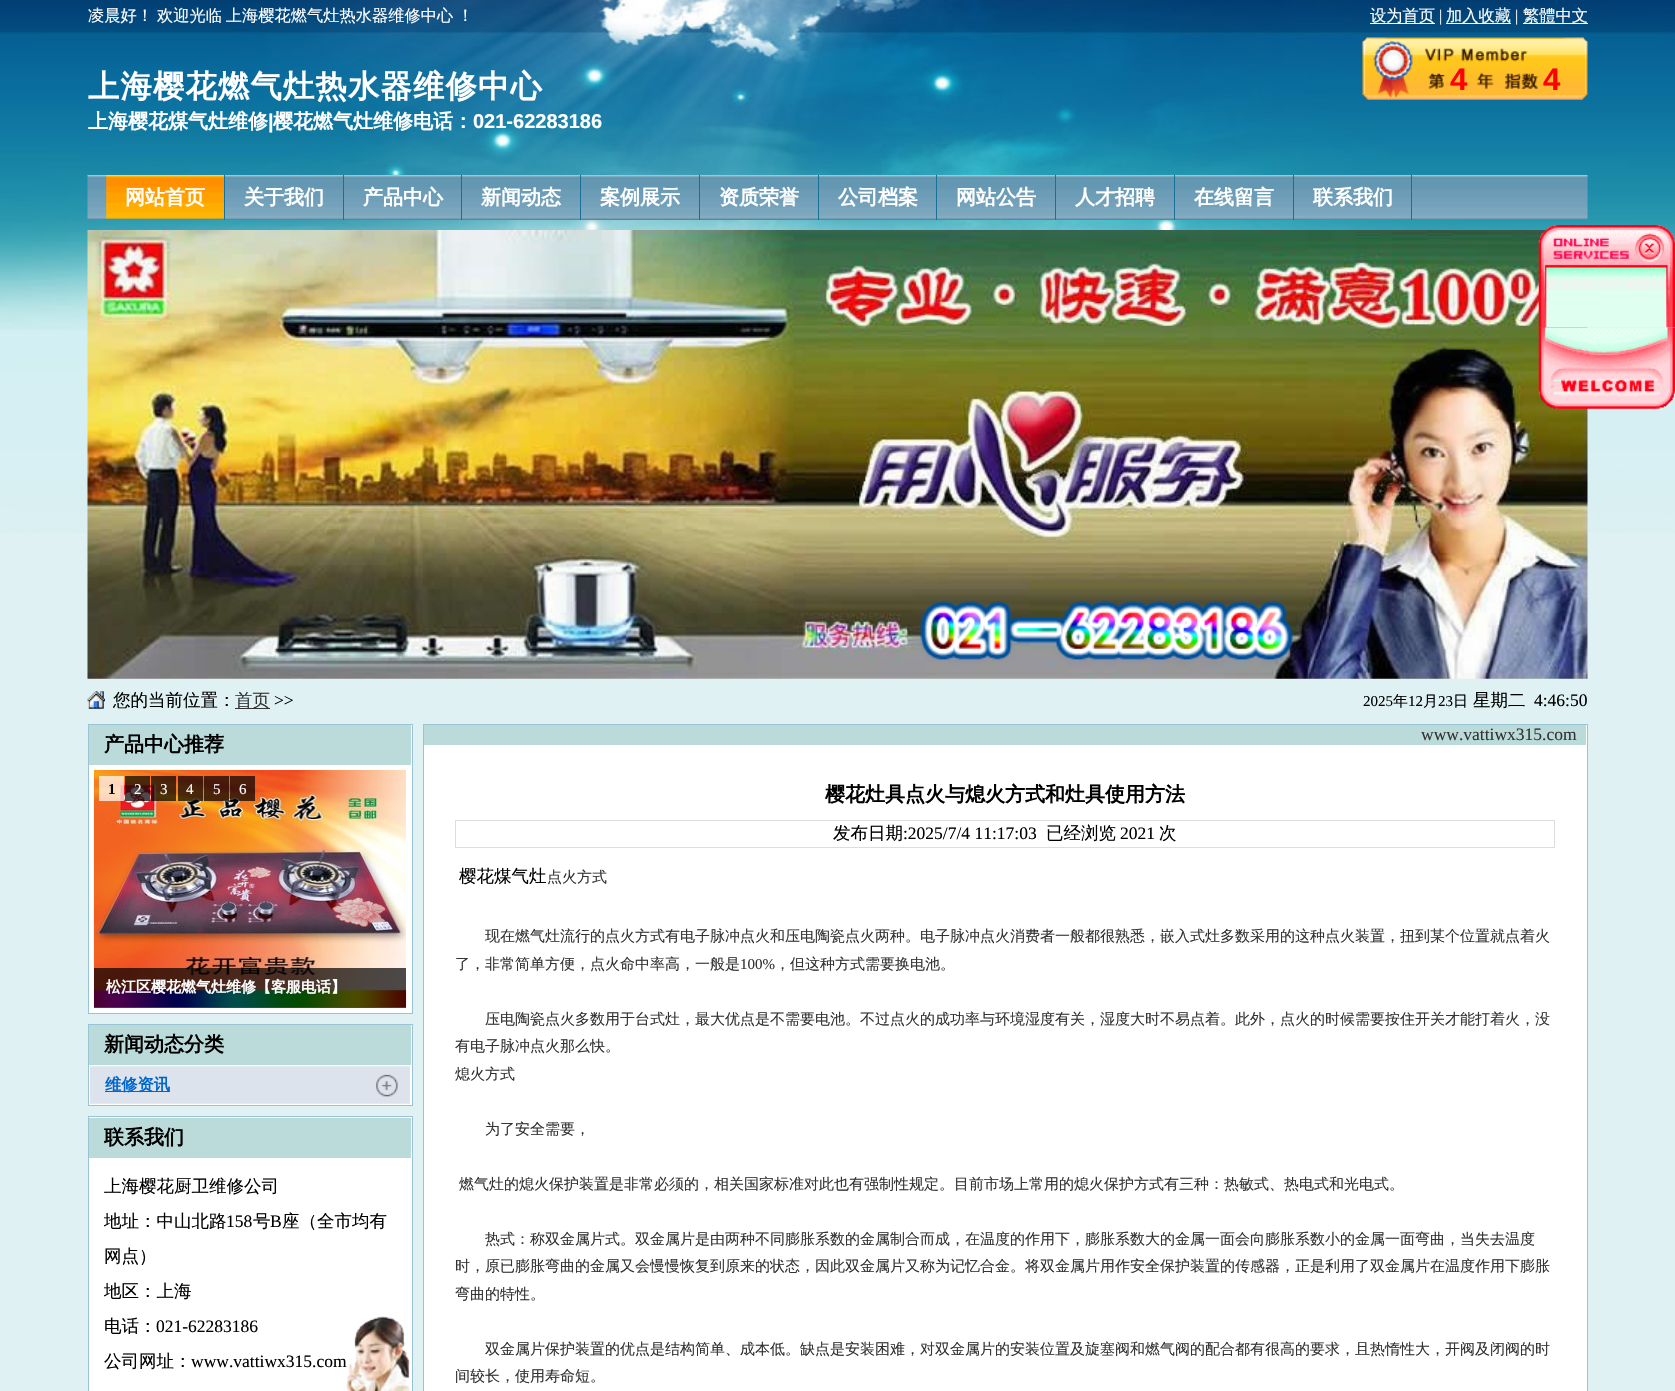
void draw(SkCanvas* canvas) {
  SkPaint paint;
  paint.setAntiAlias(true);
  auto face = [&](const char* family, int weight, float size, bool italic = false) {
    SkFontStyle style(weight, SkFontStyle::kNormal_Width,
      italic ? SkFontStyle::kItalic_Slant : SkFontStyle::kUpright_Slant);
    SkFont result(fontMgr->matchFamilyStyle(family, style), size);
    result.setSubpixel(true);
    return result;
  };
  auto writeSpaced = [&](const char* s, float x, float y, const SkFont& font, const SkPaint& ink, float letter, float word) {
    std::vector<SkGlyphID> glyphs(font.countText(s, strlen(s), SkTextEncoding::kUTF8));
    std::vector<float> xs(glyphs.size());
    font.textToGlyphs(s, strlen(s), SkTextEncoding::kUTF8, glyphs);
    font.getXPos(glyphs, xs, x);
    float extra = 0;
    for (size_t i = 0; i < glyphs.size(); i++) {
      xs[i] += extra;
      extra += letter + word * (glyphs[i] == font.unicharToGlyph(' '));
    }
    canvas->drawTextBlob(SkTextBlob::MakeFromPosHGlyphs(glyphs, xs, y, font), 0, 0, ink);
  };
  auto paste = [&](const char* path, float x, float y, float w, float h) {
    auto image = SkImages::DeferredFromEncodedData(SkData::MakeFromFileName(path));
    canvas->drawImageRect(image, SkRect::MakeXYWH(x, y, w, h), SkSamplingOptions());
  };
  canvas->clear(0xffdff1f2);
  paste("img/1.png", 0, 0, 1675, 533);
  {
    const struct { float x, y, w, h; SkColor color; } items[] = {
      {1370, 23, 65, 1, 0xffffffff},
      {1446, 23, 65, 1, 0xffffffff},
      {1523, 23, 65, 1, 0xffffffff},
    };
    for (auto [x, y, w, h, color] : items) {
      paint.setColor(color);
      canvas->drawRect(SkRect::MakeXYWH(x, y, w, h), paint);
    }
  }
  paste("img/2.png", 1362, 37, 226, 63);
  paste("img/3.png", 87, 175, 1501, 45);
  paste("img/4.png", 106, 175, 118, 44);
  {
    const struct { float x, y, w, h; SkColor color; } items[] = {
      {224, 175, 1, 45, 0xff197197},
      {343, 175, 1, 45, 0xff197197},
      {461, 175, 1, 45, 0xff197197},
      {580, 175, 1, 45, 0xff197197},
      {699, 175, 1, 45, 0xff197197},
      {818, 175, 1, 45, 0xff197197},
      {936, 175, 1, 45, 0xff197197},
      {1055, 175, 1, 45, 0xff197197},
      {1174, 175, 1, 45, 0xff197197},
      {1293, 175, 1, 45, 0xff197197},
      {1411, 175, 1, 45, 0xff197197},
    };
    for (auto [x, y, w, h, color] : items) {
      paint.setColor(color);
      canvas->drawRect(SkRect::MakeXYWH(x, y, w, h), paint);
    }
  }
  paste("img/5.png", 87, 230, 1501, 449);
  paste("img/6.png", 1538, 225, 137, 65);
  paste("img/7.png", 1538, 290, 137, 38);
  paste("img/8.png", 1538, 327, 137, 82);
  paste("img/9.png", 87, 691, 18, 18);
  paint.setColor(0xff333333);
  canvas->drawRect(SkRect::MakeXYWH(235, 708, 35, 1), paint);
  paint.setColor(0xffffffff);
  canvas->drawRect(SkRect::MakeXYWH(88.5f, 724.5f, 324, 289), paint);
  paint.setStroke(true);
  paint.setStrokeWidth(1);
  paint.setColor(0xff99c4d5);
  canvas->drawRect(SkRect::MakeXYWH(88.5f, 724.5f, 324, 289), paint);
  paint.setStroke(false);
  paint.setColor(0xffbbdada);
  canvas->drawRect(SkRect::MakeXYWH(89, 725, 322, 40), paint);
  paste("img/10.png", 93, 770, 314, 238);
  {
    const struct { float x, y, w, h; SkColor color; } items[] = {
      {99, 776, 25, 25, 0xb3ffffff},
      {125, 776, 25, 25, 0xb3000000},
      {151, 776, 25, 25, 0xb3000000},
      {178, 776, 25, 25, 0xb3000000},
      {204, 776, 25, 25, 0xb3000000},
      {230, 776, 25, 25, 0xb3000000},
      {94, 968, 312, 40, 0xb3000000},
    };
    for (auto [x, y, w, h, color] : items) {
      paint.setColor(color);
      canvas->drawRect(SkRect::MakeXYWH(x, y, w, h), paint);
    }
  }
  paint.setColor(0xffffffff);
  canvas->drawRect(SkRect::MakeXYWH(88.5f, 1024.5f, 324, 81), paint);
  paint.setStroke(true);
  paint.setColor(0xff99c4d5);
  canvas->drawRect(SkRect::MakeXYWH(88.5f, 1024.5f, 324, 81), paint);
  paint.setStroke(false);
  paint.setColor(0xffbbdada);
  canvas->drawRect(SkRect::MakeXYWH(89, 1025, 322, 40), paint);
  paste("img/11.png", 90, 1066, 320, 38);
  paint.setColor(0xff0066cc);
  canvas->drawRect(SkRect::MakeXYWH(105, 1091, 65, 1), paint);
  paint.setColor(0xffffffff);
  canvas->drawRect(SkRect::MakeXYWH(88.5f, 1116.5f, 324, 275), paint);
  paint.setStroke(true);
  paint.setColor(0xff99c4d5);
  canvas->drawRect(SkRect::MakeXYWH(88.5f, 1116.5f, 324, 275), paint);
  paint.setStroke(false);
  paint.setColor(0xffbbdada);
  canvas->drawRect(SkRect::MakeXYWH(89, 1118, 322, 40), paint);
  paste("img/12.png", 346, 1316, 65, 75);
  paint.setColor(0xffffffff);
  canvas->drawRect(SkRect::MakeXYWH(423.5f, 724.5f, 1164, 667), paint);
  paint.setStroke(true);
  paint.setColor(0xff99c4d5);
  canvas->drawRect(SkRect::MakeXYWH(423.5f, 724.5f, 1164, 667), paint);
  paint.setStroke(false);
  paint.setColor(0xffbbdada);
  canvas->drawRect(SkRect::MakeXYWH(424, 725, 1162, 20), paint);
  paint.setStroke(true);
  paint.setColor(0xffdddddd);
  canvas->drawRect(SkRect::MakeXYWH(455.5f, 820.5f, 1099, 27), paint);
  auto f0 = face("WenQuanYi Zen Hei", 500, 16.25f);
  paint.setStroke(false);
  paint.setColor(0xffffffff);
  canvas->drawString("凌晨好！", 88, 21, f0, paint);
  writeSpaced("欢迎光临 上海樱花燃气灶热水器维修中心 ！", 157, 21, f0, paint, 0, -1);
  canvas->drawString("设为首页", 1370, 21, f0, paint);
  auto f1 = face("Liberation Serif", 400, 16.25f);
  canvas->drawString("|", 1439, 21, f1, paint);
  canvas->drawString("加入收藏", 1446, 21, f0, paint);
  canvas->drawString("|", 1515, 21, f1, paint);
  canvas->drawString("繁體中文", 1523, 21, f0, paint);
  auto f2 = face("WenQuanYi Zen Hei", 700, 31.25f);
  writeSpaced("上海樱花燃气灶热水器维修中心", 88, 97, f2, paint, 1.25f, 0);
  auto f3 = face("WenQuanYi Zen Hei", 700, 20);
  canvas->drawString("上海樱花煤气灶维修", 88, 128, f3, paint);
  auto f4 = face("Liberation Sans", 700, 20);
  canvas->drawString("|", 268, 128, f4, paint);
  canvas->drawString("樱花燃气灶维修电话：", 273, 128, f3, paint);
  canvas->drawString("021-62283186", 473, 128, f4, paint);
  auto f5 = face("Liberation Sans", 700, 31.25f);
  paint.setColor(0xffff0000);
  canvas->drawString("4", 1450, 90, f5, paint);
  canvas->drawString("4", 1543, 90, f5, paint);
  paint.setColor(0xffffffff);
  {
    const struct { const char* s; float x, y; } items[] = {
      {"网站首页", 125, 204},
      {"关于我们", 244, 204},
      {"产品中心", 363, 204},
      {"新闻动态", 481, 204},
      {"案例展示", 600, 204},
      {"资质荣誉", 719, 204},
      {"公司档案", 838, 204},
      {"网站公告", 956, 204},
      {"人才招聘", 1075, 204},
      {"在线留言", 1194, 204},
      {"联系我们", 1313, 204},
    };
    for (auto [s, x, y] : items) {
      canvas->drawString(s, x, y, f3, paint);
    }
  }
  auto f6 = face("WenQuanYi Zen Hei", 500, 17.5f);
  paint.setColor(0xff000000);
  canvas->drawString("您的当前位置：", 113, 706, f6, paint);
  paint.setColor(0xff333333);
  canvas->drawString("首页", 235, 706, f6, paint);
  auto f7 = face("Liberation Serif", 400, 17.5f);
  paint.setColor(0xff000000);
  canvas->drawString(">>", 274, 706, f7, paint);
  auto f8 = face("Liberation Serif", 400, 15);
  canvas->drawString("2025", 1363, 706, f8, paint);
  auto f9 = face("WenQuanYi Zen Hei", 500, 15);
  canvas->drawString("年", 1393, 706, f9, paint);
  canvas->drawString("12", 1408, 706, f8, paint);
  canvas->drawString("月", 1423, 706, f9, paint);
  canvas->drawString("23", 1438, 706, f8, paint);
  canvas->drawString("日", 1453, 706, f9, paint);
  canvas->drawString("星期二", 1473, 706, f6, paint);
  canvas->drawString("4:46:50", 1534, 706, f7, paint);
  canvas->drawString("产品中心推荐", 104, 751, f3, paint);
  auto f10 = face("Liberation Serif", 700, 15);
  canvas->drawString("1", 108, 794, f10, paint);
  paint.setColor(0xffffffff);
  {
    const struct { const char* s; float x, y; } items[] = {
      {"2", 134, 794},
      {"3", 160, 794},
      {"4", 186, 794},
      {"5", 213, 794},
      {"6", 239, 794},
    };
    for (auto [s, x, y] : items) {
      canvas->drawString(s, x, y, f8, paint);
    }
  }
  auto f11 = face("WenQuanYi Zen Hei", 700, 15);
  canvas->drawString("松江区樱花燃气灶维修【客服电话】", 106, 992, f11, paint);
  paint.setColor(0xff000000);
  canvas->drawString("新闻动态分类", 104, 1051, f3, paint);
  auto f12 = face("WenQuanYi Zen Hei", 700, 16.25f);
  paint.setColor(0xff0066cc);
  canvas->drawString("维修资讯", 105, 1090, f12, paint);
  paint.setColor(0xff000000);
  canvas->drawString("联系我们", 104, 1144, f3, paint);
  canvas->drawString("上海樱花厨卫维修公司", 104, 1192, f6, paint);
  canvas->drawString("地址：中山北路", 104, 1227, f6, paint);
  canvas->drawString("158", 226, 1227, f7, paint);
  canvas->drawString("号", 253, 1227, f6, paint);
  canvas->drawString("B", 270, 1227, f7, paint);
  {
    const struct { const char* s; float x, y; } items[] = {
      {"座（全市均有", 282, 1227},
      {"网点）", 104, 1262},
      {"地区：上海", 104, 1297},
      {"电话：", 104, 1332},
    };
    for (auto [s, x, y] : items) {
      canvas->drawString(s, x, y, f6, paint);
    }
  }
  canvas->drawString("021-62283186", 156, 1332, f7, paint);
  canvas->drawString("公司网址：", 104, 1367, f6, paint);
  canvas->drawString("www.vattiwx315.com", 191, 1367, f7, paint);
  paint.setColor(0xff333333);
  canvas->drawString("www.vattiwx315.com", 1421, 740, f7, paint);
  paint.setColor(0xff000000);
  canvas->drawString("樱花灶具点火与熄火方式和灶具使用方法", 825, 801, f3, paint);
  canvas->drawString("发布日期", 833, 839, f6, paint);
  canvas->drawString(":2025/7/4 11:17:03", 903, 839, f7, paint);
  canvas->drawString("已经浏览", 1046, 839, f6, paint);
  canvas->drawString("2021", 1120, 839, f7, paint);
  canvas->drawString("次", 1159, 839, f6, paint);
  canvas->drawString("樱花煤气灶", 459, 882, f6, paint);
  paint.setColor(0xff333333);
  {
    const struct { const char* s; float x, y; } items[] = {
      {"点火方式", 547, 882},
      {"现在燃气灶流行的点火方式有电子脉冲点火和压电陶瓷点火两种。电子脉冲点火消费者一般都很熟悉，嵌入式灶多数采用的这种点火装置，扭到某个位置就点着火", 485, 941},
      {"了，非常简单方便，点火命中率高，一般是", 455, 969},
    };
    for (auto [s, x, y] : items) {
      canvas->drawString(s, x, y, f9, paint);
    }
  }
  canvas->drawString("100%", 740, 969, f8, paint);
  {
    const struct { const char* s; float x, y; } items[] = {
      {"，但这种方式需要换电池。", 775, 969},
      {"压电陶瓷点火多数用于台式灶，最大优点是不需要电池。不过点火的成功率与环境湿度有关，湿度大时不易点着。此外，点火的时候需要按住开关才能打着火，没", 485, 1024},
      {"有电子脉冲点火那么快。", 455, 1051},
      {"熄火方式", 455, 1079},
      {"为了安全需要，", 485, 1134},
      {"燃气灶的熄火保护装置是非常必须的，相关国家标准对此也有强制性规定。目前市场上常用的熄火保护方式有三种：热敏式、热电式和光电式。", 459, 1189},
      {"热式：称双金属片式。双金属片是由两种不同膨胀系数的金属制合而成，在温度的作用下，膨胀系数大的金属一面会向膨胀系数小的金属一面弯曲，当失去温度", 485, 1244},
      {"时，原已膨胀弯曲的金属又会慢慢恢复到原来的状态，因此双金属片又称为记忆合金。将双金属片用作安全保护装置的传感器，正是利用了双金属片在温度作用下膨胀", 455, 1271},
      {"弯曲的特性。", 455, 1299},
      {"双金属片保护装置的优点是结构简单、成本低。缺点是安装困难，对双金属片的安装位置及旋塞阀和燃气阀的配合都有很高的要求，且热惰性大，开阀及闭阀的时", 485, 1354},
      {"间较长，使用寿命短。", 455, 1381},
    };
    for (auto [s, x, y] : items) {
      canvas->drawString(s, x, y, f9, paint);
    }
  }
}
